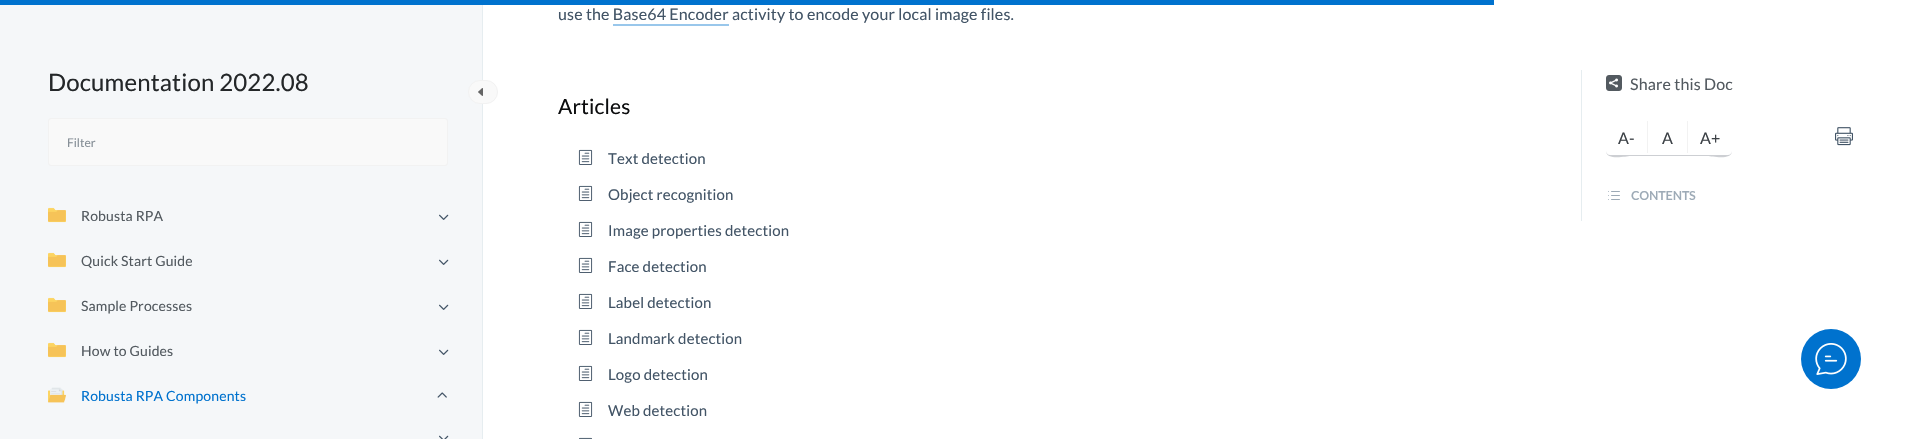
void draw(SkCanvas* canvas) {
  SkPaint paint;
  paint.setAntiAlias(true);
  auto face = [&](const char* family, int weight, float size, bool italic = false) {
    SkFontStyle style(weight, SkFontStyle::kNormal_Width,
      italic ? SkFontStyle::kItalic_Slant : SkFontStyle::kUpright_Slant);
    SkFont result(fontMgr->matchFamilyStyle(family, style), size);
    result.setSubpixel(true);
    return result;
  };
  auto writeSpaced = [&](const char* s, float x, float y, const SkFont& font, const SkPaint& ink, float letter, float word) {
    std::vector<SkGlyphID> glyphs(font.countText(s, strlen(s), SkTextEncoding::kUTF8));
    std::vector<float> xs(glyphs.size());
    font.textToGlyphs(s, strlen(s), SkTextEncoding::kUTF8, glyphs);
    font.getXPos(glyphs, xs, x);
    float extra = 0;
    for (size_t i = 0; i < glyphs.size(); i++) {
      xs[i] += extra;
      extra += letter + word * (glyphs[i] == font.unicharToGlyph(' '));
    }
    canvas->drawTextBlob(SkTextBlob::MakeFromPosHGlyphs(glyphs, xs, y, font), 0, 0, ink);
  };
  auto paste = [&](const char* path, float x, float y, float w, float h) {
    auto image = SkImages::DeferredFromEncodedData(SkData::MakeFromFileName(path));
    canvas->drawImageRect(image, SkRect::MakeXYWH(x, y, w, h), SkSamplingOptions());
  };
  auto shape = [&](const char* data, bool evenOdd = false) {
    SkPath result = *SkParsePath::FromSVGString(data);
    if (evenOdd) result.setFillType(SkPathFillType::kEvenOdd);
    return result;
  };
  canvas->clear(0xffffffff);
  {
    const struct { float x, y, w, h; SkColor color; } items[] = {
      {482, 0, 1, 439, 0xffe6edf0},
      {0, 0, 1494, 5, 0xff0072ce},
      {0, 5, 482, 434, 0xfff5f7f9},
    };
    for (auto [x, y, w, h, color] : items) {
      paint.setColor(color);
      canvas->drawRect(SkRect::MakeXYWH(x, y, w, h), paint);
    }
  }
  paint.setColor(0xfff9f9f9);
  canvas->drawRoundRect(SkRect::MakeXYWH(48.5f, 118.5f, 399, 47), 2.5f, 2.5f, paint);
  paint.setStroke(true);
  paint.setStrokeWidth(1);
  paint.setColor(0xfff2f2f2);
  canvas->drawRoundRect(SkRect::MakeXYWH(48.5f, 118.5f, 399, 47), 2.5f, 2.5f, paint);
  paste("img/1.png", 48, 207, 18, 16);
  paste("img/2.png", 439, 214, 10, 6);
  paste("img/1.png", 48, 252, 18, 16);
  paste("img/2.png", 439, 259, 10, 6);
  paste("img/1.png", 48, 297, 18, 16);
  paste("img/2.png", 439, 304, 10, 6);
  paste("img/1.png", 48, 342, 18, 16);
  paste("img/2.png", 439, 349, 10, 6);
  paste("img/3.png", 48, 387, 18, 16);
  paste("img/4.png", 437, 392, 10, 6);
  paste("img/5.png", 439, 435, 10, 4);
  paint.setStroke(false);
  paint.setColor(0xfff9f9f9);
  canvas->drawRoundRect(SkRect::MakeXYWH(468.5f, 80.5f, 29, 23), 11.5f, 11.5f, paint);
  paint.setStroke(true);
  paint.setColor(0xfff2f2f2);
  canvas->drawRoundRect(SkRect::MakeXYWH(468.5f, 80.5f, 29, 23), 11.5f, 11.5f, paint);
  paste("img/6.png", 478, 88, 5, 8);
  paint.setStroke(false);
  paint.setColor(0xff99c7eb);
  canvas->drawRect(SkRect::MakeXYWH(613, 24, 116, 2), paint);
  paste("img/7.png", 578, 149, 15, 16);
  paste("img/7.png", 578, 185, 15, 16);
  paste("img/7.png", 578, 221, 15, 16);
  paste("img/7.png", 578, 257, 15, 16);
  paste("img/7.png", 578, 293, 15, 16);
  paste("img/7.png", 578, 329, 15, 16);
  paste("img/7.png", 578, 365, 15, 16);
  paste("img/7.png", 578, 401, 15, 16);
  paste("img/8.png", 579, 437, 13, 2);
  paint.setColor(0xffe6edf0);
  canvas->drawRect(SkRect::MakeXYWH(1581, 70, 1, 151), paint);
  paste("img/9.png", 1606, 75, 16, 16);
  paint.setColor(0xffcdcfd3);
  canvas->drawPath(shape("M1606 151C1606 161 1627 156 1630 156H1708C1711 156 1732 161 1732 151C1732 153 1730 155 1728 155H1610C1608 155 1606 153 1606 151Z"), paint);
  paint.setColor(0xfff2f2f2);
  canvas->drawRect(SkRect::MakeXYWH(1687, 121, 1, 32), paint);
  canvas->drawRect(SkRect::MakeXYWH(1647, 121, 1, 32), paint);
  paste("img/10.png", 1835, 127, 18, 19);
  paste("img/11.png", 1608, 191, 12, 9);
  paint.setColor(0xff0072ce);
  canvas->drawCircle(1831, 359, 30, paint);
  paste("img/12.png", 1815, 343, 32, 32);
  auto f0 = face("Lato", 400, 24);
  paint.setColor(0xff242729);
  writeSpaced("Documentation 2022.08", 48, 91, f0, paint, 0.15f, 0);
  auto f1 = face("Lato", 400, 12);
  paint.setColor(0xff848d95);
  canvas->drawString("Filter", 67, 147, f1, paint);
  auto f2 = face("Lato", 400, 14);
  paint.setColor(0xff535a60);
  {
    const struct { const char* s; float x, y; } items[] = {
      {"Robusta RPA", 81, 221},
      {"Quick Start Guide", 81, 266},
      {"Sample Processes", 81, 311},
      {"How to Guides", 81, 356},
    };
    for (auto [s, x, y] : items) {
      writeSpaced(s, x, y, f2, paint, 0.15f, 0);
    }
  }
  paint.setColor(0xff0072ce);
  writeSpaced("Robusta RPA Components", 81, 401, f2, paint, 0.15f, 0);
  auto f3 = face("Lato", 400, 16);
  paint.setColor(0xff425466);
  writeSpaced("use the Base64 Encoder activity to encode your local image files.", 558, 20, f3, paint, 0.15f, 0);
  auto f4 = face("Lato", 400, 21);
  paint.setColor(0xff0c0d0e);
  writeSpaced("Articles", 558, 114, f4, paint, 0.15f, 0);
  auto f5 = face("Lato", 400, 15);
  paint.setColor(0xff425466);
  {
    const struct { const char* s; float x, y; } items[] = {
      {"Text detection", 608, 164},
      {"Object recognition", 608, 200},
      {"Image properties detection", 608, 236},
      {"Face detection", 608, 272},
      {"Label detection", 608, 308},
      {"Landmark detection", 608, 344},
      {"Logo detection", 608, 380},
      {"Web detection", 608, 416},
    };
    for (auto [s, x, y] : items) {
      writeSpaced(s, x, y, f5, paint, 0.15f, 0);
    }
  }
  paint.setColor(0xff535a60);
  writeSpaced("Share this Doc", 1630, 90, f3, paint, 0.15f, 0);
  paint.setColor(0xff3c4146);
  {
    const struct { const char* s; float x, y; } items[] = {
      {"A-", 1618, 144},
      {"A", 1662, 144},
      {"A+", 1700, 144},
    };
    for (auto [s, x, y] : items) {
      canvas->drawString(s, x, y, f3, paint);
    }
  }
  auto f6 = face("Lato", 700, 12);
  paint.setColor(0xff9daab6);
  writeSpaced("CONTENTS", 1631, 200, f6, paint, 0.15f, 0);
}
